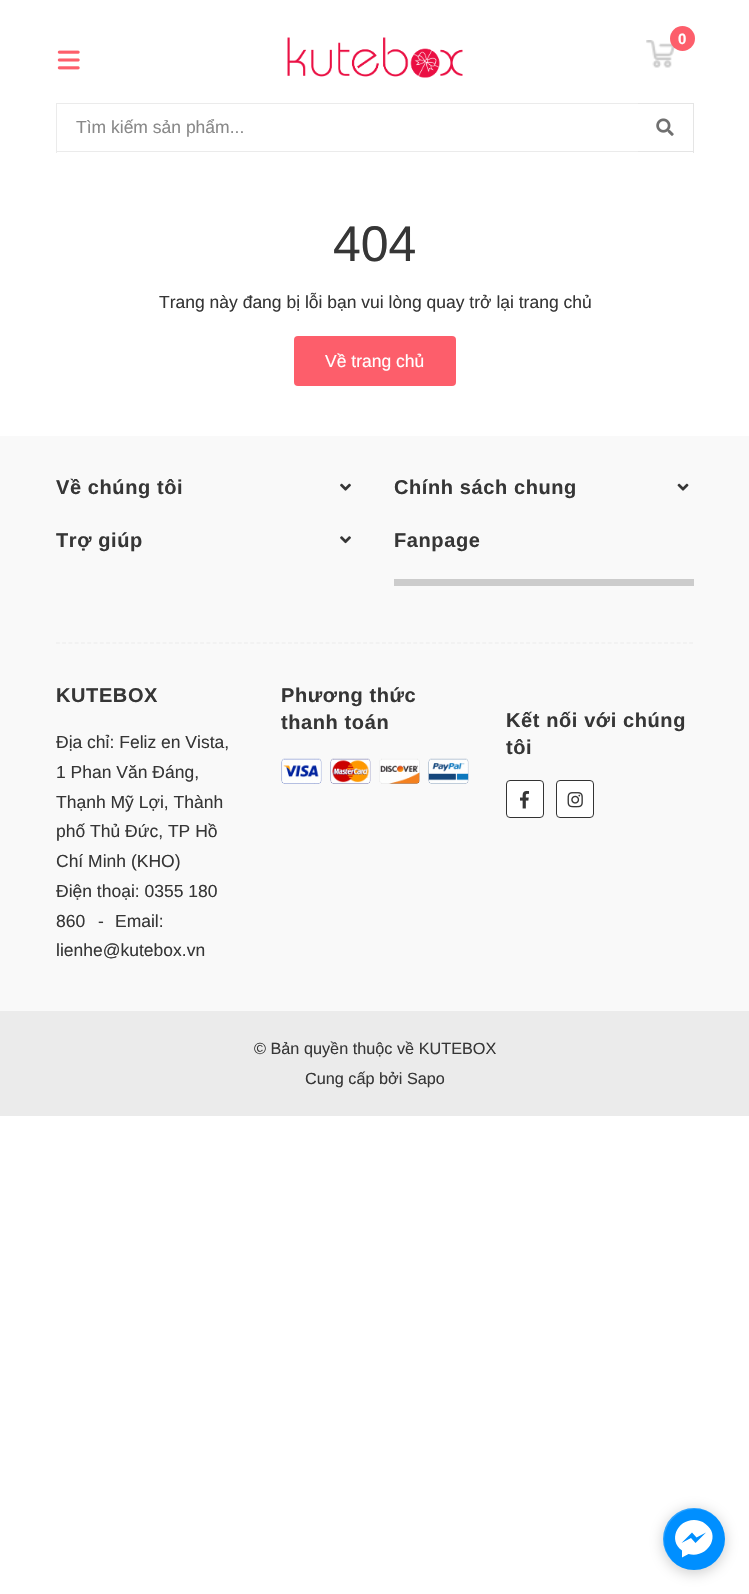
void draw(SkCanvas* canvas) {
  SkPaint paint;
  paint.setAntiAlias(true);
  auto face = [&](const char* family, int weight, float size, bool italic = false) {
    SkFontStyle style(weight, SkFontStyle::kNormal_Width,
      italic ? SkFontStyle::kItalic_Slant : SkFontStyle::kUpright_Slant);
    SkFont result(fontMgr->matchFamilyStyle(family, style), size);
    result.setSubpixel(true);
    return result;
  };
  auto writeSpaced = [&](const char* s, float x, float y, const SkFont& font, const SkPaint& ink, float letter, float word) {
    std::vector<SkGlyphID> glyphs(font.countText(s, strlen(s), SkTextEncoding::kUTF8));
    std::vector<float> xs(glyphs.size());
    font.textToGlyphs(s, strlen(s), SkTextEncoding::kUTF8, glyphs);
    font.getXPos(glyphs, xs, x);
    float extra = 0;
    for (size_t i = 0; i < glyphs.size(); i++) {
      xs[i] += extra;
      extra += letter + word * (glyphs[i] == font.unicharToGlyph(' '));
    }
    canvas->drawTextBlob(SkTextBlob::MakeFromPosHGlyphs(glyphs, xs, y, font), 0, 0, ink);
  };
  auto paste = [&](const char* path, float x, float y, float w, float h) {
    auto image = SkImages::DeferredFromEncodedData(SkData::MakeFromFileName(path));
    canvas->drawImageRect(image, SkRect::MakeXYWH(x, y, w, h), SkSamplingOptions());
  };
  auto shape = [&](const char* data, bool evenOdd = false) {
    SkPath result = *SkParsePath::FromSVGString(data);
    if (evenOdd) result.setFillType(SkPathFillType::kEvenOdd);
    return result;
  };
  canvas->clear(0xffffffff);
  paste("img/1.png", 57, 50, 23, 20);
  paste("img/2.png", 287, 37, 176, 41);
  paste("img/3.png", 646, 40, 29, 28);
  paint.setColor(0xfffd5e6b);
  canvas->drawCircle(682.5f, 38.5f, 12.5f, paint);
  {
    const struct { float x, y, w, h; SkColor color; } items[] = {
      {56, 103, 582, 1, 0xffebebeb},
      {56, 151, 582, 1, 0xffebebeb},
      {56, 103, 1, 50, 0xffebebeb},
      {638, 103, 56, 1, 0xffe5e5e5},
      {693, 103, 1, 50, 0xffe5e5e5},
      {638, 151, 56, 1, 0xffe5e5e5},
    };
    for (auto [x, y, w, h, color] : items) {
      paint.setColor(color);
      canvas->drawRect(SkRect::MakeXYWH(x, y, w, h), paint);
    }
  }
  paste("img/4.png", 656, 118, 18, 18);
  paint.setColor(0xfffd5e6b);
  canvas->drawRoundRect(SkRect::MakeXYWH(294, 336, 162, 50), 4, 4, paint);
  paint.setColor(0xfff9f9f9);
  canvas->drawRect(SkRect::MakeXYWH(0, 436, 749, 575), paint);
  paste("img/5.png", 340, 483, 11, 8);
  paste("img/6.png", 677, 483, 12, 8);
  paste("img/7.png", 340, 536, 11, 8);
  paint.setColor(0xffcccccc);
  canvas->drawRect(SkRect::MakeXYWH(394, 579, 300, 7), paint);
  paint.setStroke(true);
  paint.setStrokeWidth(1.2f);
  paint.setColor(0xffebebeb);
  paint.setPathEffect(SkDashPathEffect::Make({{3.75f, 2.52f}}, 0));
  canvas->drawPath(shape("M56 643H694"), paint);
  paint.setPathEffect(nullptr);
  paste("img/8.png", 281, 758, 188, 26);
  paint.setStroke(false);
  paint.setColor(0xffffffff);
  canvas->drawRoundRect(SkRect::MakeXYWH(506.5f, 780.5f, 37, 37), 3.5f, 3.5f, paint);
  paint.setStroke(true);
  paint.setStrokeWidth(1);
  paint.setColor(0xff333333);
  canvas->drawRoundRect(SkRect::MakeXYWH(506.5f, 780.5f, 37, 37), 3.5f, 3.5f, paint);
  paste("img/9.png", 520, 790, 10, 19);
  paint.setStroke(false);
  paint.setColor(0xffffffff);
  canvas->drawRoundRect(SkRect::MakeXYWH(556.5f, 780.5f, 37, 37), 3.5f, 3.5f, paint);
  paint.setStroke(true);
  paint.setColor(0xff333333);
  canvas->drawRoundRect(SkRect::MakeXYWH(556.5f, 780.5f, 37, 37), 3.5f, 3.5f, paint);
  paste("img/10.png", 567, 792, 16, 16);
  paint.setStroke(false);
  paint.setColor(0xffebebeb);
  canvas->drawRect(SkRect::MakeXYWH(0, 1011, 749, 105), paint);
  paint.setColor(0x66808080);
  paint.setMaskFilter(SkMaskFilter::MakeBlur(kNormal_SkBlurStyle, 7));
  canvas->drawRoundRect(SkRect::MakeXYWH(663, 1510, 62, 63), 31, 31, paint);
  paint.setMaskFilter(nullptr);
  paint.setColor(0xff008fff);
  canvas->drawCircle(694, 1539, 31, paint);
  paint.setColor(0x26ffffff);
  canvas->drawPath(shape("M695 1509C704 1509 712 1513 717 1519C706 1505 685 1504 672 1517C659 1530 660 1551 674 1562C654 1544 667 1509 695 1509Z"), paint);
  paint.setColor(0xffffffff);
  canvas->drawPath(shape("M694 1520C677 1520 668 1540.5 682 1550.5V1557.5L688.5 1554C707 1559 722 1536 705.5 1524C702 1521 698 1520 694 1520ZM695.5 1543L691 1538L681.5 1543L692 1532.5L696.5 1537.5L706 1532.5Z"), paint);
  auto f0 = face("Liberation Sans", 700, 15);
  canvas->drawString("0", 678, 44, f0, paint);
  auto f1 = face("Liberation Sans", 400, 17.5f);
  paint.setColor(0xff898989);
  canvas->drawString("Tìm kiếm sản phẩm...", 76, 133, f1, paint);
  auto f2 = face("Liberation Sans", 400, 50);
  paint.setColor(0xff363636);
  canvas->drawString("404", 333, 261, f2, paint);
  canvas->drawString("Trang này đang bị lỗi bạn vui lòng quay trở lại trang chủ", 159, 308, f1, paint);
  paint.setColor(0xffffffff);
  canvas->drawString("Về trang chủ", 325, 367, f1, paint);
  auto f3 = face("Liberation Sans", 700, 20);
  paint.setColor(0xff363636);
  {
    const struct { const char* s; float x, y; } items[] = {
      {"Về chúng tôi", 56, 494},
      {"Chính sách chung", 394, 494},
      {"Trợ giúp", 56, 547},
      {"Fanpage", 394, 547},
      {"KUTEBOX", 56, 702},
    };
    for (auto [s, x, y] : items) {
      writeSpaced(s, x, y, f3, paint, 0.6f, 0);
    }
  }
  {
    const struct { const char* s; float x, y; } items[] = {
      {"Địa chỉ: Feliz en Vista,", 56, 748},
      {"1 Phan Văn Đáng,", 56, 778},
      {"Thạnh Mỹ Lợi, Thành", 56, 808},
      {"phố Thủ Đức, TP Hồ", 56, 837},
      {"Chí Minh (KHO)", 56, 867},
      {"Điện thoại: 0355 180", 56, 897},
      {"860", 56, 927},
      {"-", 98, 927},
      {"Email:", 115, 927},
      {"lienhe@kutebox.vn", 56, 956},
    };
    for (auto [s, x, y] : items) {
      canvas->drawString(s, x, y, f1, paint);
    }
  }
  {
    const struct { const char* s; float x, y; } items[] = {
      {"Phương thức", 281, 702},
      {"thanh toán", 281, 729},
      {"Kết nối với chúng", 506, 727},
      {"tôi", 506, 754},
    };
    for (auto [s, x, y] : items) {
      writeSpaced(s, x, y, f3, paint, 0.6f, 0);
    }
  }
  auto f4 = face("Liberation Sans", 400, 16.25f);
  canvas->drawString("© Bản quyền thuộc về KUTEBOX", 254, 1054, f4, paint);
  canvas->drawString("Cung cấp bởi Sapo", 305, 1084, f4, paint);
}
